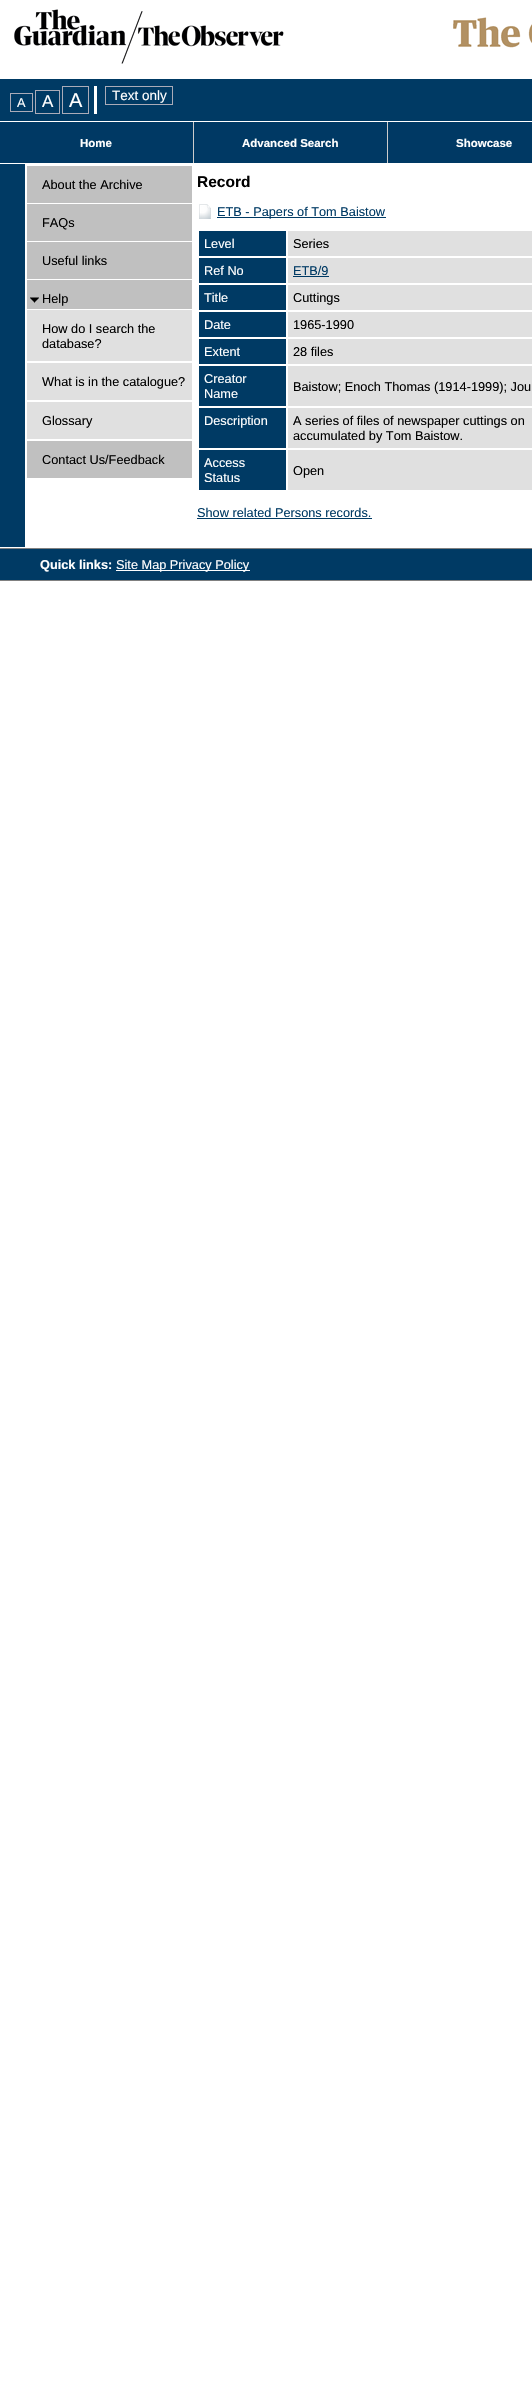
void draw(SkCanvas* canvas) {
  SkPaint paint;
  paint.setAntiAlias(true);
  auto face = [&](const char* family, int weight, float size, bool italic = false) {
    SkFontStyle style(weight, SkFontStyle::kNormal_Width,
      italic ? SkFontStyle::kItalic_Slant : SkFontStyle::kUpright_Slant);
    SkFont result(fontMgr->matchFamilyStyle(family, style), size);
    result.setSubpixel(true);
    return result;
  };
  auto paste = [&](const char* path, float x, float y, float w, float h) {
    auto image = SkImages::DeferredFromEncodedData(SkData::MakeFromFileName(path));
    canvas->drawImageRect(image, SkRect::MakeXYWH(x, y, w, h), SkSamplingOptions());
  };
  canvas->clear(0xffffffff);
  paste("img/1.png", 14, 9, 518, 55);
  paint.setColor(0xff003a64);
  canvas->drawRect(SkRect::MakeXYWH(0, 79, 532, 42), paint);
  paint.setColor(0xffffffff);
  canvas->drawRect(SkRect::MakeXYWH(94, 86, 3, 28), paint);
  paint.setStroke(true);
  paint.setStrokeWidth(1);
  paint.setColor(0xffaaabb8);
  canvas->drawRect(SkRect::MakeXYWH(10.5f, 93.5f, 22, 18), paint);
  canvas->drawRect(SkRect::MakeXYWH(35.5f, 90.5f, 24, 23), paint);
  canvas->drawRect(SkRect::MakeXYWH(62.5f, 86.5f, 26, 27), paint);
  canvas->drawRect(SkRect::MakeXYWH(105.5f, 86.5f, 67, 18), paint);
  paint.setStroke(false);
  {
    const struct { float x, y, w, h; SkColor color; } items[] = {
      {0, 122, 193, 41, 0xff003964},
      {193, 122, 1, 41, 0xffcccccc},
      {194, 122, 193, 41, 0xff003964},
      {387, 122, 1, 41, 0xffcccccc},
      {388, 122, 144, 41, 0xff003964},
      {0, 164, 25, 383, 0xff003a64},
      {27, 166, 165, 37, 0xffc0c0c0},
      {27, 204, 165, 37, 0xffc0c0c0},
      {27, 242, 165, 37, 0xffc0c0c0},
      {27, 280, 165, 29, 0xffc0c0c0},
    };
    for (auto [x, y, w, h, color] : items) {
      paint.setColor(color);
      canvas->drawRect(SkRect::MakeXYWH(x, y, w, h), paint);
    }
  }
  paste("img/2.png", 30, 297, 9, 6);
  {
    const struct { float x, y, w, h; SkColor color; } items[] = {
      {27, 310, 165, 51, 0xffe0e0e0},
      {27, 363, 165, 37, 0xffe0e0e0},
      {27, 402, 165, 37, 0xffe0e0e0},
      {27, 441, 165, 37, 0xffc0c0c0},
    };
    for (auto [x, y, w, h, color] : items) {
      paint.setColor(color);
      canvas->drawRect(SkRect::MakeXYWH(x, y, w, h), paint);
    }
  }
  paste("img/3.png", 199, 204, 12, 15);
  {
    const struct { float x, y, w, h; SkColor color; } items[] = {
      {217, 217, 169, 1, 0xff003a64},
      {199, 231, 87, 25, 0xff003a64},
      {288, 231, 244, 25, 0xffe0e0e0},
      {199, 258, 87, 25, 0xff003a64},
      {288, 258, 244, 25, 0xffe0e0e0},
      {293, 276, 36, 1, 0xff003a64},
      {199, 285, 87, 25, 0xff003a64},
      {288, 285, 244, 25, 0xffe0e0e0},
      {199, 312, 87, 25, 0xff003a64},
      {288, 312, 244, 25, 0xffe0e0e0},
      {199, 339, 87, 25, 0xff003a64},
      {288, 339, 244, 25, 0xffe0e0e0},
      {199, 366, 87, 40, 0xff003a64},
      {288, 366, 244, 40, 0xffe0e0e0},
      {199, 408, 87, 40, 0xff003a64},
      {288, 408, 244, 40, 0xffe0e0e0},
      {199, 450, 87, 40, 0xff003a64},
      {288, 450, 244, 40, 0xffe0e0e0},
      {197, 518, 175, 1, 0xff003a64},
      {0, 549, 532, 31, 0xff003a64},
      {0, 548, 532, 1, 0xff808080},
      {0, 580, 532, 1, 0xff808080},
      {116, 570, 134, 1, 0xffffffff},
    };
    for (auto [x, y, w, h, color] : items) {
      paint.setColor(color);
      canvas->drawRect(SkRect::MakeXYWH(x, y, w, h), paint);
    }
  }
  auto f0 = face("Liberation Sans", 400, 12.75f);
  canvas->drawString("A", 17, 107, f0, paint);
  auto f1 = face("Liberation Sans", 400, 17);
  canvas->drawString("A", 42, 107, f1, paint);
  auto f2 = face("Liberation Sans", 400, 20);
  canvas->drawString("A", 69, 107, f2, paint);
  auto f3 = face("Liberation Sans", 400, 13.5f);
  canvas->drawString("Text only", 112, 100, f3, paint);
  auto f4 = face("Liberation Sans", 700, 11.5f);
  {
    const struct { const char* s; float x, y; } items[] = {
      {"Home", 80, 147},
      {"Advanced Search", 242, 147},
      {"Showcase", 456, 147},
    };
    for (auto [s, x, y] : items) {
      canvas->drawString(s, x, y, f4, paint);
    }
  }
  paint.setColor(0xff000000);
  {
    const struct { const char* s; float x, y; } items[] = {
      {"About the Archive", 42, 189},
      {"FAQs", 42, 227},
      {"Useful links", 42, 265},
      {"Help", 42, 303},
      {"How do I search the", 42, 333},
      {"database?", 42, 348},
      {"What is in the catalogue?", 42, 386},
      {"Glossary", 42, 425},
      {"Contact Us/Feedback", 42, 464},
    };
    for (auto [s, x, y] : items) {
      canvas->drawString(s, x, y, f0, paint);
    }
  }
  auto f5 = face("Liberation Sans", 700, 15.5f);
  canvas->drawString("Record", 197, 187, f5, paint);
  paint.setColor(0xff003a64);
  canvas->drawString("ETB - Papers of Tom Baistow", 217, 216, f0, paint);
  paint.setColor(0xffffffff);
  canvas->drawString("Level", 204, 248, f0, paint);
  paint.setColor(0xff000000);
  canvas->drawString("Series", 293, 248, f0, paint);
  paint.setColor(0xffffffff);
  canvas->drawString("Ref No", 204, 275, f0, paint);
  paint.setColor(0xff003a64);
  canvas->drawString("ETB/9", 293, 275, f0, paint);
  paint.setColor(0xffffffff);
  canvas->drawString("Title", 204, 302, f0, paint);
  paint.setColor(0xff000000);
  canvas->drawString("Cuttings", 293, 302, f0, paint);
  paint.setColor(0xffffffff);
  canvas->drawString("Date", 204, 329, f0, paint);
  paint.setColor(0xff000000);
  canvas->drawString("1965-1990", 293, 329, f0, paint);
  paint.setColor(0xffffffff);
  canvas->drawString("Extent", 204, 356, f0, paint);
  paint.setColor(0xff000000);
  canvas->drawString("28 files", 293, 356, f0, paint);
  paint.setColor(0xffffffff);
  canvas->drawString("Creator", 204, 383, f0, paint);
  canvas->drawString("Name", 204, 398, f0, paint);
  paint.setColor(0xff000000);
  canvas->drawString("Baistow; Enoch Thomas (1914-1999); Jou", 293, 391, f0, paint);
  paint.setColor(0xffffffff);
  canvas->drawString("Description", 204, 425, f0, paint);
  paint.setColor(0xff000000);
  canvas->drawString("A series of files of newspaper cuttings on", 293, 425, f0, paint);
  canvas->drawString("accumulated by Tom Baistow.", 293, 440, f0, paint);
  paint.setColor(0xffffffff);
  canvas->drawString("Access", 204, 467, f0, paint);
  canvas->drawString("Status", 204, 482, f0, paint);
  paint.setColor(0xff000000);
  canvas->drawString("Open", 293, 475, f0, paint);
  paint.setColor(0xff003a64);
  canvas->drawString("Show related Persons records.", 197, 517, f0, paint);
  auto f6 = face("Liberation Sans", 700, 12.75f);
  paint.setColor(0xffffffff);
  canvas->drawString("Quick links:", 40, 569, f6, paint);
  canvas->drawString("Site Map Privacy Policy", 116, 569, f0, paint);
}
